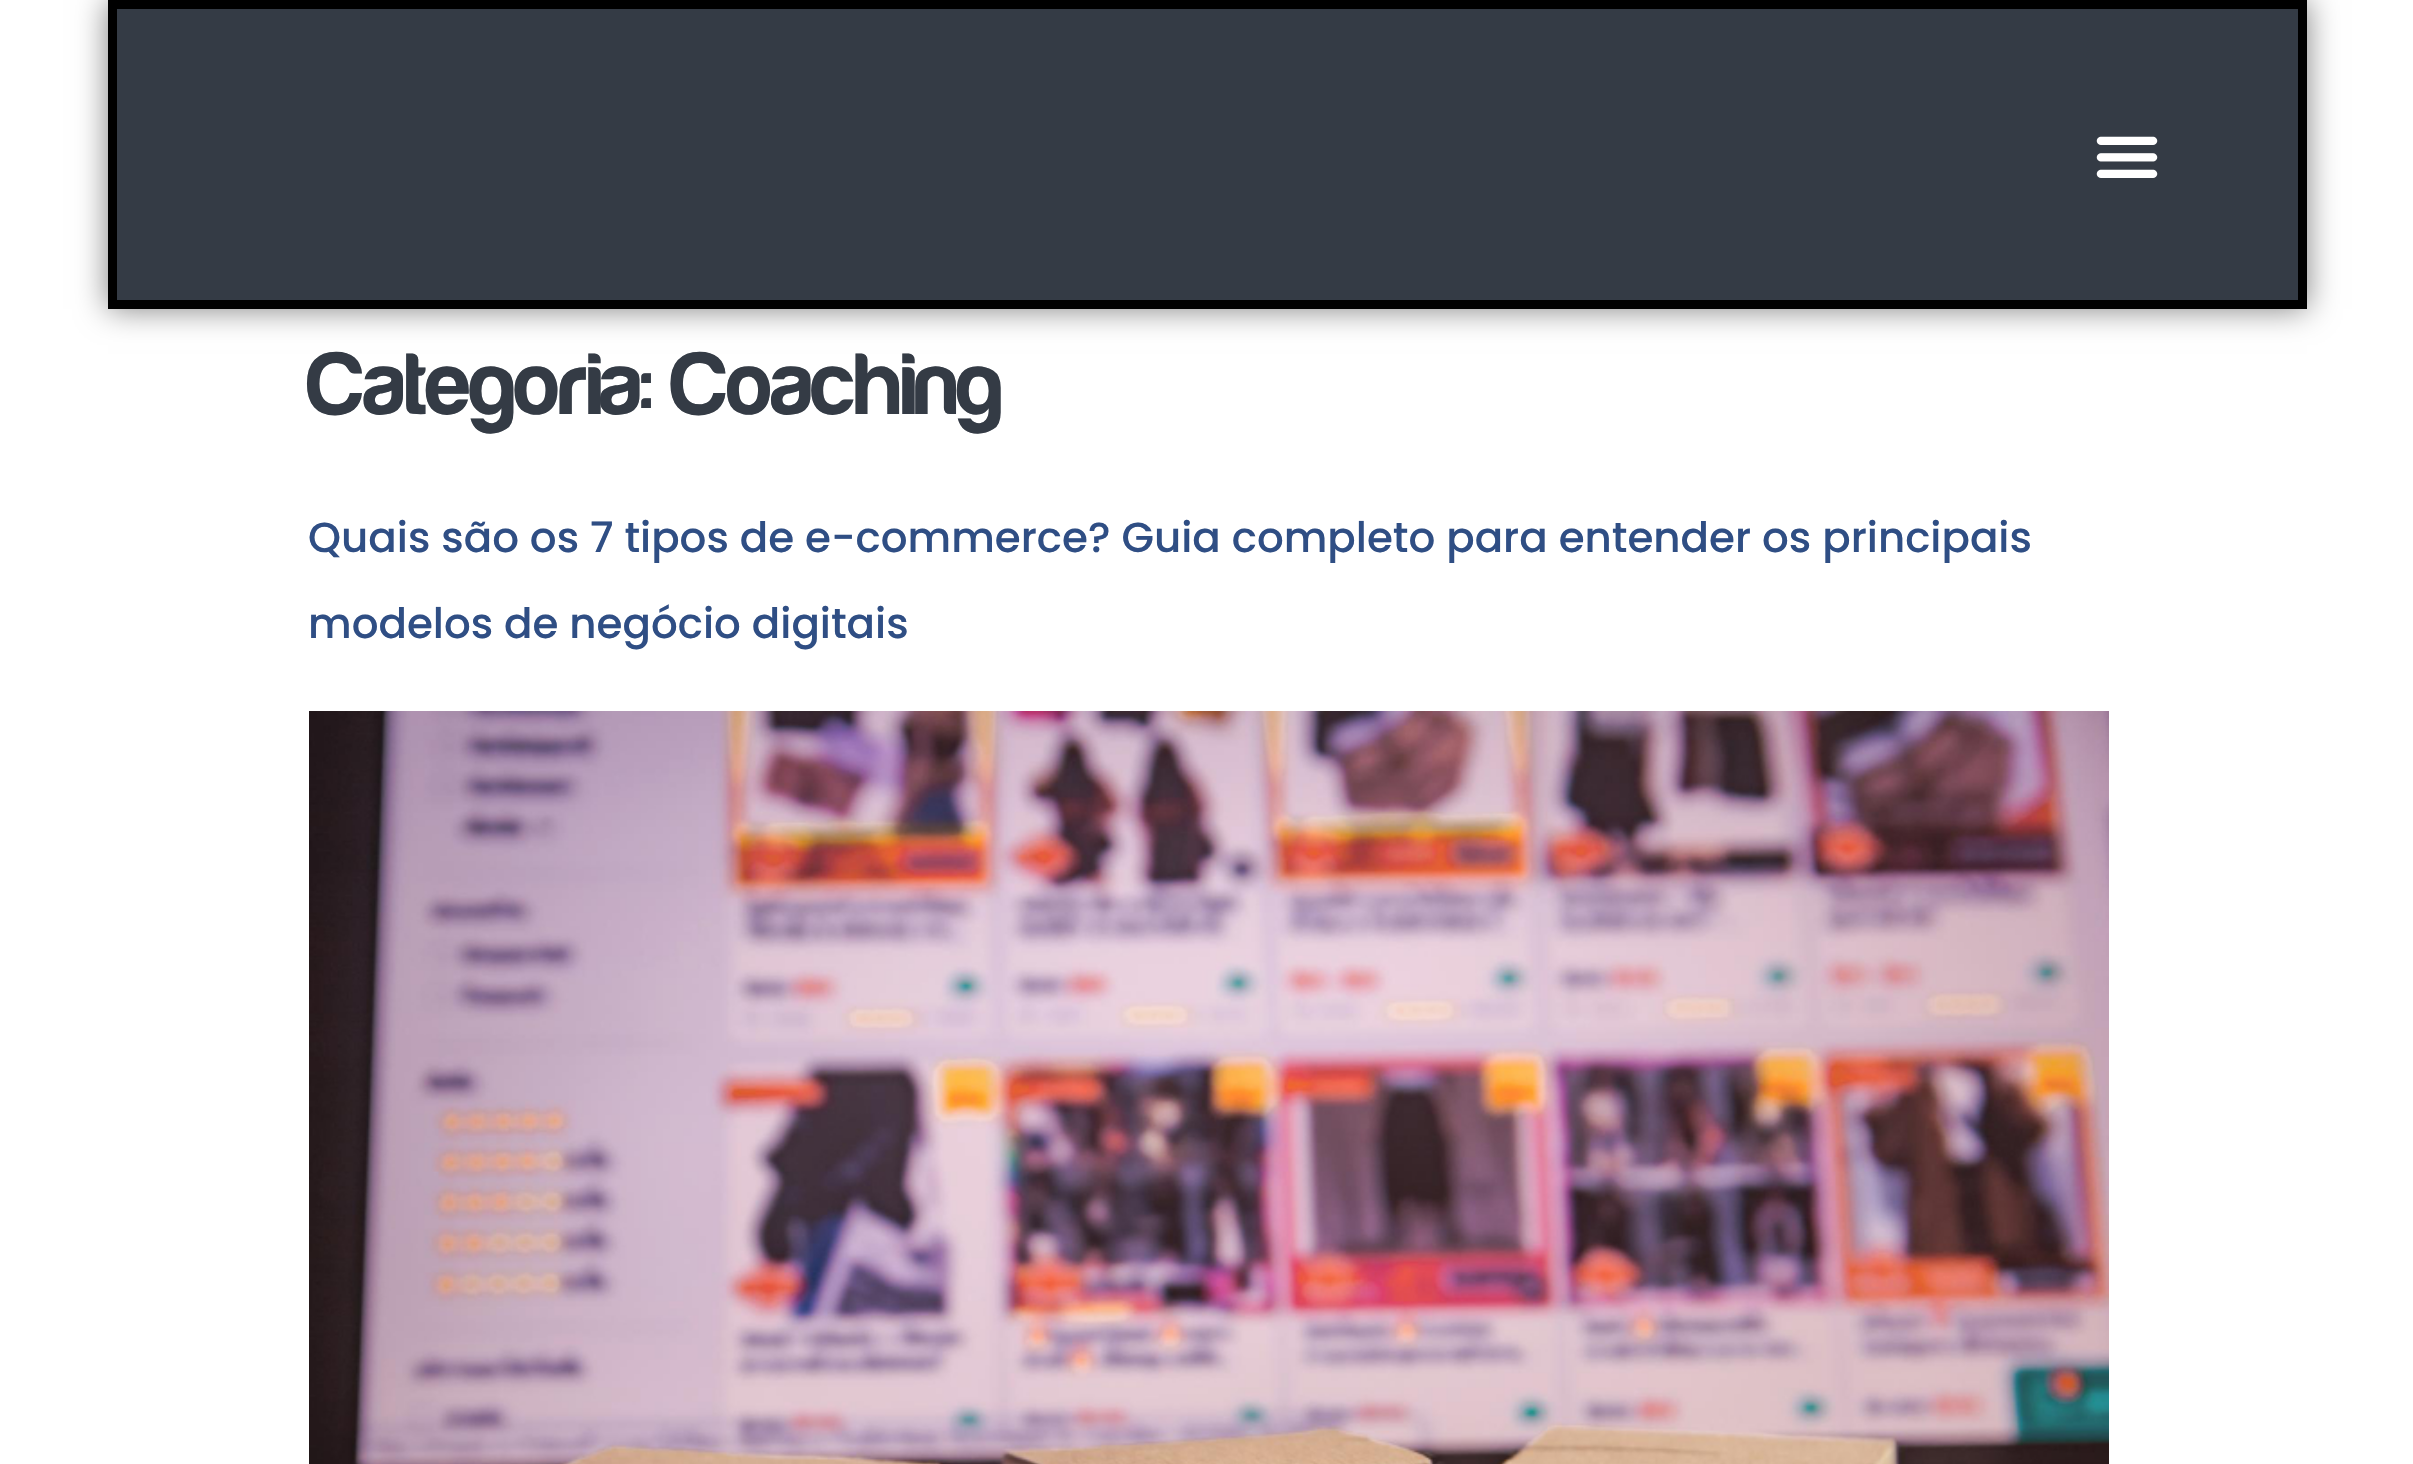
void draw(SkCanvas* canvas) {
  SkPaint paint;
  paint.setAntiAlias(true);
  auto face = [&](const char* family, int weight, float size, bool italic = false) {
    SkFontStyle style(weight, SkFontStyle::kNormal_Width,
      italic ? SkFontStyle::kItalic_Slant : SkFontStyle::kUpright_Slant);
    SkFont result(fontMgr->matchFamilyStyle(family, style), size);
    result.setSubpixel(true);
    return result;
  };
  auto paste = [&](const char* path, float x, float y, float w, float h) {
    auto image = SkImages::DeferredFromEncodedData(SkData::MakeFromFileName(path));
    canvas->drawImageRect(image, SkRect::MakeXYWH(x, y, w, h), SkSamplingOptions());
  };
  canvas->clear(0xffffffff);
  paint.setColor(0x80000000);
  paint.setMaskFilter(SkMaskFilter::MakeBlur(kNormal_SkBlurStyle, 15));
  canvas->drawRect(SkRect::MakeXYWH(108, 0, 2199, 309), paint);
  paint.setMaskFilter(nullptr);
  paint.setColor(0xff343b45);
  canvas->drawRect(SkRect::MakeXYWH(112.5f, 4.5f, 2190, 300), paint);
  paint.setStroke(true);
  paint.setStrokeWidth(9);
  paint.setColor(0xff000000);
  canvas->drawRect(SkRect::MakeXYWH(112.5f, 4.5f, 2190, 300), paint);
  paste("img/1.png", 2096, 136, 62, 42);
  paste("img/2.png", 309, 711, 1800, 753);
  auto f0 = face("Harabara", 700, 90);
  paint.setStroke(false);
  paint.setColor(0xff343b45);
  canvas->drawString("Categoria: Coaching", 308, 414, f0, paint);
  auto f1 = face("Poppins", 500, 42);
  paint.setColor(0xff2f4e84);
  canvas->drawString("Quais são os 7 tipos de e-commerce? Guia completo para entender os principais", 308, 552, f1, paint);
  canvas->drawString("modelos de negócio digitais", 308, 638, f1, paint);
}
